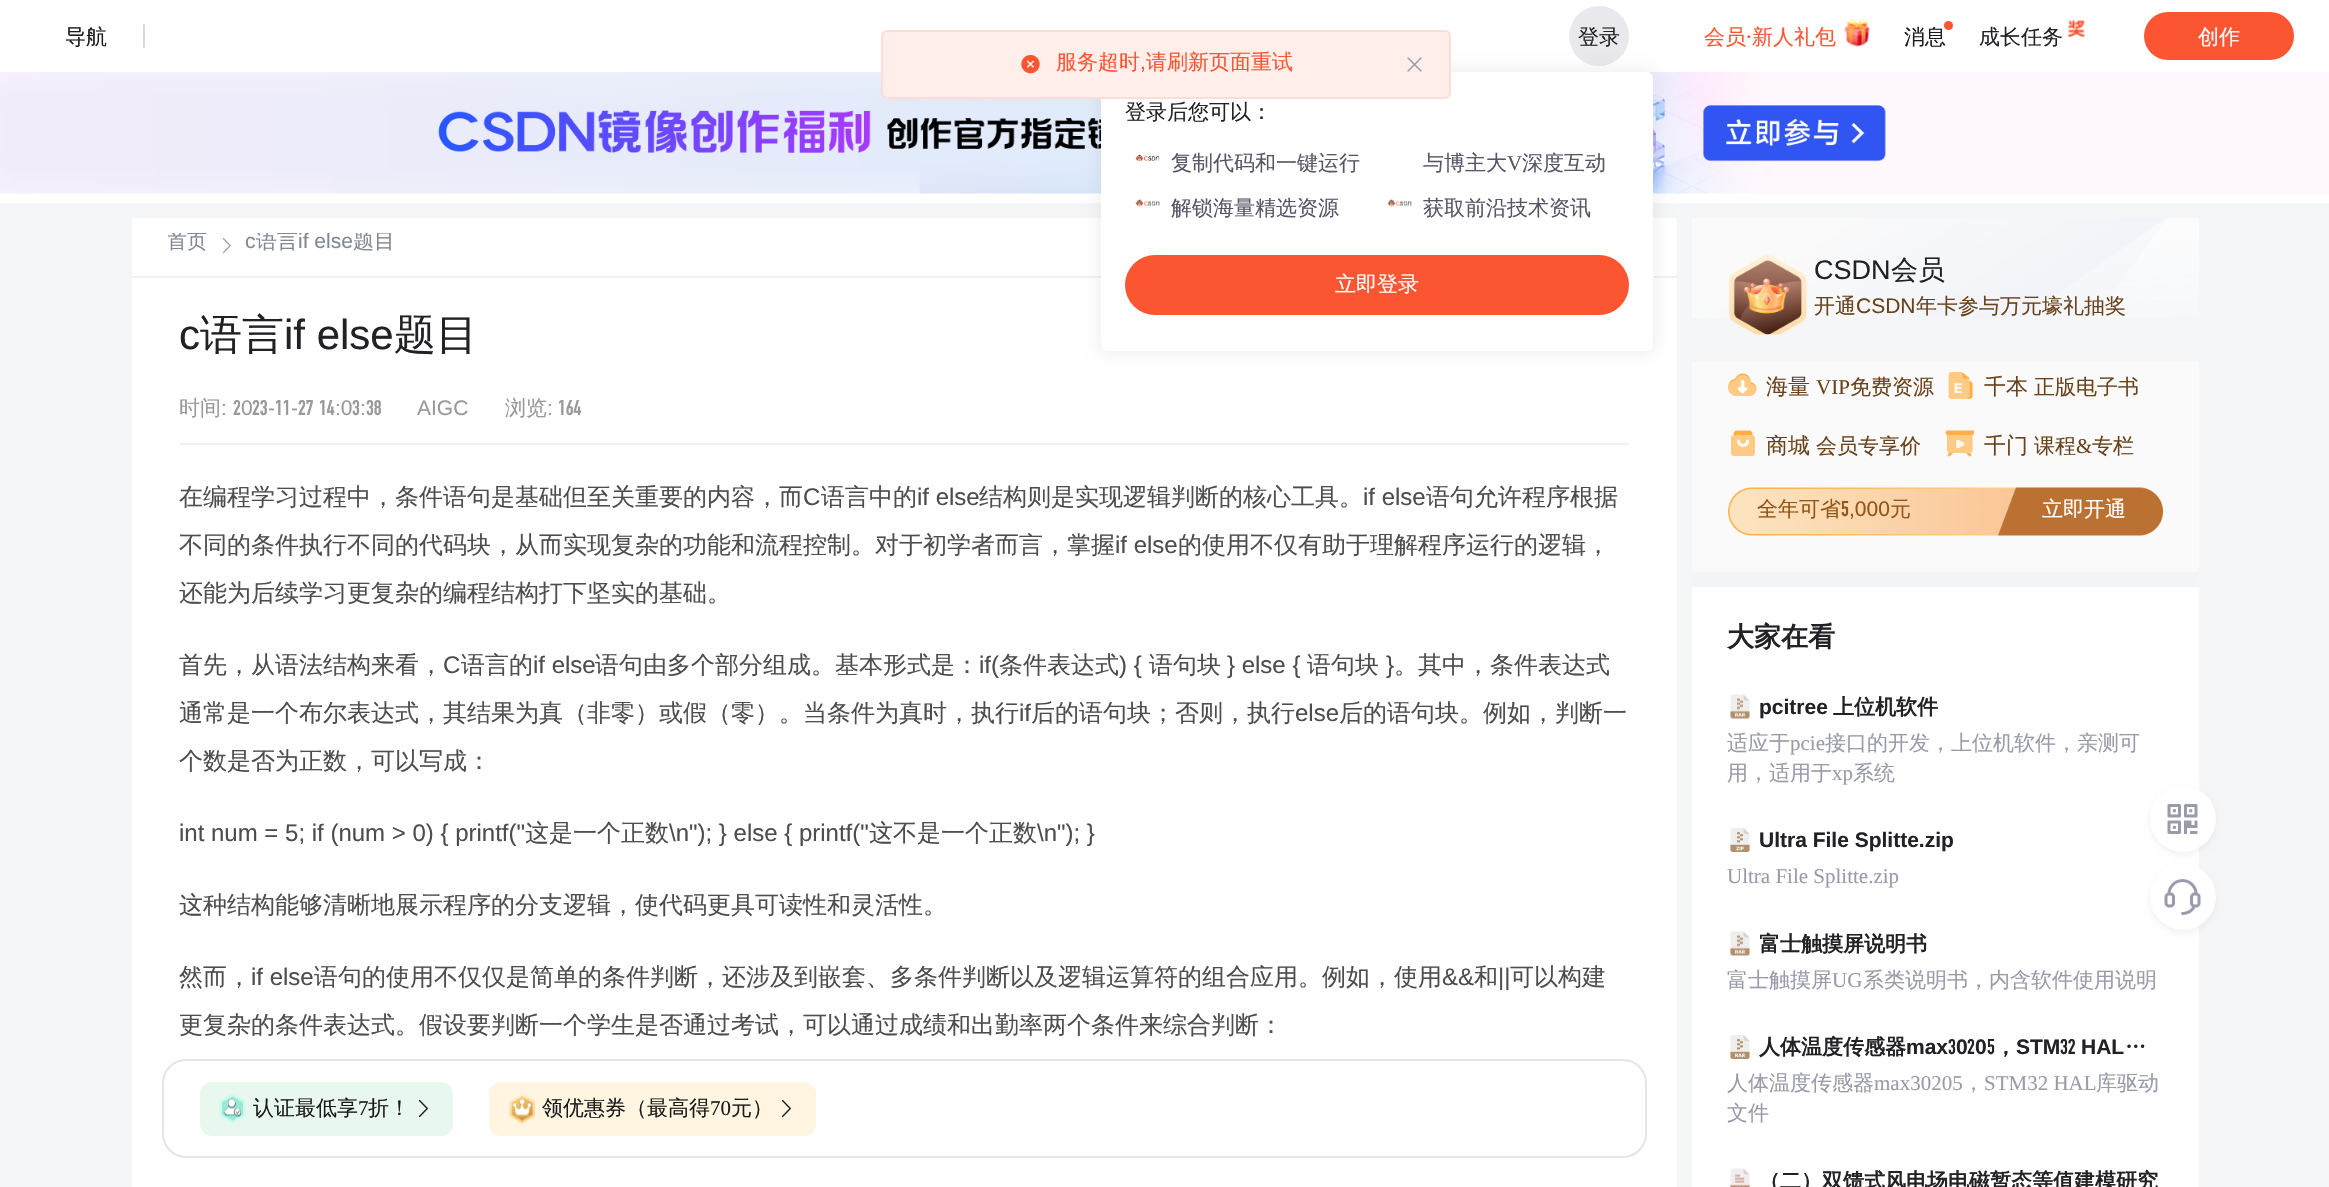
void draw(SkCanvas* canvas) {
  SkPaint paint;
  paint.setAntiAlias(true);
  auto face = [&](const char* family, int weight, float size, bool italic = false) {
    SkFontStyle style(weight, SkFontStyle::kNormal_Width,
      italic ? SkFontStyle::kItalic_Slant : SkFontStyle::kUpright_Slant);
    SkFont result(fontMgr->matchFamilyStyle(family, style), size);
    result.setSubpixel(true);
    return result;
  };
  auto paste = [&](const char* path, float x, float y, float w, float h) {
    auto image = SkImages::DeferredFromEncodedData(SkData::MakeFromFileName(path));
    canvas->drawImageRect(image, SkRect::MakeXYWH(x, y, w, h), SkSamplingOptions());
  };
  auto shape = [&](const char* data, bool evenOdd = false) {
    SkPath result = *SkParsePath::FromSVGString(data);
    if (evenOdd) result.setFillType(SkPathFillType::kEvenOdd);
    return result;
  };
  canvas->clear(0xffffffff);
  paint.setColor(0xffd8d8d8);
  canvas->drawRoundRect(SkRect::MakeXYWH(143, 24, 2, 24), 1, 1, paint);
  paint.setColor(0xffe8e8ed);
  canvas->drawCircle(1599, 36, 30, paint);
  paste("img/7.png", 0, 72, 2329, 122);
  {
    const struct { float x, y, w, h; SkColor color; } items[] = {
      {0, 203, 2329, 984, 0xfff5f6f7},
      {132, 218, 1545, 969, 0xffffffff},
      {132, 276, 1545, 2, 0xfff0f0f5},
    };
    for (auto [x, y, w, h, color] : items) {
      paint.setColor(color);
      canvas->drawRect(SkRect::MakeXYWH(x, y, w, h), paint);
    }
  }
  paint.setColor(0x0f000000);
  paint.setMaskFilter(SkMaskFilter::MakeBlur(kNormal_SkBlurStyle, 7.5f));
  canvas->drawRoundRect(SkRect::MakeXYWH(1098, 69, 558, 285), 9, 9, paint);
  paint.setMaskFilter(nullptr);
  paint.setColor(0xffffffff);
  canvas->drawRoundRect(SkRect::MakeXYWH(1101, 72, 552, 279), 6, 6, paint);
  paste("img/1.png", 1135, 154, 25, 8);
  paste("img/2.png", 1135, 199, 25, 8);
  paste("img/2.png", 1387, 199, 25, 8);
  paint.setColor(0xfffc5531);
  canvas->drawRoundRect(SkRect::MakeXYWH(1125, 255, 504, 60), 30, 30, paint);
  paste("img/3.png", 1844, 19, 26, 28);
  paste("img/4.png", 2067, 20, 18, 18);
  canvas->drawRoundRect(SkRect::MakeXYWH(2144, 12, 150, 48), 24, 24, paint);
  paint.setColor(0xffffeeea);
  canvas->drawRoundRect(SkRect::MakeXYWH(882, 31, 568, 67), 5, 5, paint);
  paint.setStroke(true);
  paint.setStrokeWidth(2);
  paint.setColor(0xfffeddd6);
  canvas->drawRoundRect(SkRect::MakeXYWH(882, 31, 568, 67), 5, 5, paint);
  paste("img/5.png", 1021, 54, 19, 20);
  paste("img/6.png", 1407, 57, 15, 15);
  paste("img/8.png", 222, 238, 9, 16);
  paint.setStroke(false);
  paint.setColor(0xfff0f0f5);
  canvas->drawRect(SkRect::MakeXYWH(180, 443, 1449, 2), paint);
  paint.setStroke(true);
  paint.setColor(0xffe5e5e5);
  canvas->drawRoundRect(SkRect::MakeXYWH(163, 1060, 1483, 97), 23, 23, paint);
  paint.setStroke(false);
  paint.setColor(0xffe9f8ef);
  canvas->drawRoundRect(SkRect::MakeXYWH(200, 1082, 253, 54), 12, 12, paint);
  paste("img/9.png", 219, 1093, 27, 31);
  paste("img/10.png", 418, 1099, 10, 19);
  paint.setColor(0xfffff5e1);
  canvas->drawRoundRect(SkRect::MakeXYWH(489, 1082, 327, 54), 12, 12, paint);
  paste("img/11.png", 509, 1093, 26, 31);
  paste("img/12.png", 781, 1099, 10, 19);
  paste("img/13.png", 1692, 218, 507, 100);
  paste("img/14.png", 1729, 255, 78, 80);
  paint.setColor(0xfffafafa);
  canvas->drawPath(shape("M1692 362H2199V569C2199 570.5 2197.5 572 2196 572H1695C1693.5 572 1692 570.5 1692 569Z"), paint);
  paste("img/15.png", 1728, 373, 29, 23);
  paste("img/16.png", 1948, 372, 25, 27);
  paste("img/17.png", 1731, 430, 24, 26);
  paste("img/18.png", 1945, 430, 29, 27);
  paste("img/19.png", 1728, 487, 435, 49);
  paint.setColor(0xfff2f5f7);
  canvas->drawRect(SkRect::MakeXYWH(1692, 572, 507, 15), paint);
  paint.setColor(0xffffffff);
  canvas->drawRect(SkRect::MakeXYWH(1692, 587, 507, 600), paint);
  paste("img/20.png", 1730, 694, 20, 25);
  paste("img/21.png", 1730, 828, 20, 24);
  paste("img/20.png", 1730, 931, 20, 25);
  paste("img/22.png", 1730, 1035, 20, 24);
  paste("img/23.png", 1730, 1168, 20, 19);
  paint.setColor(0x0d000000);
  paint.setMaskFilter(SkMaskFilter::MakeBlur(kNormal_SkBlurStyle, 3));
  canvas->drawRoundRect(SkRect::MakeXYWH(2150, 789, 66, 66), 33, 33, paint);
  paint.setMaskFilter(nullptr);
  paint.setColor(0xffffffff);
  canvas->drawCircle(2183, 819, 33, paint);
  paste("img/24.png", 2167, 804, 31, 30);
  paint.setColor(0x0d000000);
  paint.setMaskFilter(SkMaskFilter::MakeBlur(kNormal_SkBlurStyle, 3));
  canvas->drawRoundRect(SkRect::MakeXYWH(2150, 867, 66, 66), 33, 33, paint);
  paint.setMaskFilter(nullptr);
  paint.setColor(0xffffffff);
  canvas->drawCircle(2183, 897, 33, paint);
  paste("img/25.png", 2164, 879, 37, 36);
  auto f0 = face("WenQuanYi Zen Hei", 500, 21);
  paint.setColor(0xff1a1a1a);
  canvas->drawString("导航", 65, 44, f0, paint);
  paint.setColor(0xff222226);
  canvas->drawString("登录", 1578, 44, f0, paint);
  canvas->drawString("登录后您可以：", 1125, 119, f0, paint);
  paint.setColor(0xff555666);
  canvas->drawString("复制代码和一键运行", 1171, 170, f0, paint);
  canvas->drawString("与博主大", 1423, 170, f0, paint);
  auto f1 = face("Liberation Serif", 400, 21);
  canvas->drawString("V", 1507, 170, f1, paint);
  {
    const struct { const char* s; float x, y; } items[] = {
      {"深度互动", 1522, 170},
      {"解锁海量精选资源", 1171, 215},
      {"获取前沿技术资讯", 1423, 215},
    };
    for (auto [s, x, y] : items) {
      canvas->drawString(s, x, y, f0, paint);
    }
  }
  paint.setColor(0xffffffff);
  canvas->drawString("立即登录", 1335, 291, f0, paint);
  paint.setColor(0xfffc5531);
  canvas->drawString("会员", 1704, 44, f0, paint);
  auto f2 = face("Roboto", 500, 21);
  canvas->drawString("·", 1746, 44, f2, paint);
  canvas->drawString("新人礼包", 1752, 44, f0, paint);
  paint.setColor(0xff1a1a1a);
  canvas->drawString("消息", 1904, 44, f0, paint);
  paint.setColor(0xfffc5531);
  canvas->drawCircle(1948.5f, 25.5f, 4.5f, paint);
  paint.setColor(0xff222226);
  canvas->drawString("成长任务", 1979, 44, f0, paint);
  paint.setColor(0xffffffff);
  canvas->drawString("创作", 2198, 44, f0, paint);
  paint.setColor(0xfffc5531);
  canvas->drawString("服务超时", 1056, 69, f0, paint);
  auto f3 = face("Liberation Sans", 400, 21);
  canvas->drawString(",", 1140, 69, f3, paint);
  canvas->drawString("请刷新页面重试", 1146, 69, f0, paint);
  canvas->save();
  canvas->clipRect(SkRect::MakeXYWH(168, 233, 39, 21));
  auto f4 = face("WenQuanYi Zen Hei", 500, 20);
  paint.setColor(0xff828795);
  canvas->drawString("首页", 167, 248, f4, paint);
  canvas->restore();
  canvas->drawString("c", 245, 248, f3, paint);
  canvas->save();
  canvas->clipRect(SkRect::MakeXYWH(246, 233, 149, 21));
  canvas->drawString("语言", 256, 248, f0, paint);
  canvas->drawString("if else", 298, 248, f3, paint);
  canvas->drawString("题目", 353, 248, f0, paint);
  canvas->restore();
  auto f5 = face("Liberation Sans", 400, 42);
  paint.setColor(0xff222226);
  canvas->drawString("c", 179, 349, f5, paint);
  auto f6 = face("WenQuanYi Zen Hei", 500, 42);
  canvas->drawString("语言", 200, 349, f6, paint);
  canvas->drawString("if else", 284, 349, f5, paint);
  canvas->drawString("题目", 394, 349, f6, paint);
  paint.setColor(0xff999999);
  canvas->drawString("时间", 179, 415, f0, paint);
  canvas->drawString(":", 221, 415, f3, paint);
  auto f7 = face("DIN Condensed", 700, 21);
  canvas->drawString("2", 233, 415, f7, paint);
  canvas->drawString("0", 241, 415, f3, paint);
  canvas->drawString("23", 252, 415, f7, paint);
  canvas->drawString("-", 268, 415, f3, paint);
  canvas->drawString("11", 275, 415, f7, paint);
  canvas->drawString("-", 291, 415, f3, paint);
  canvas->drawString("27", 298, 415, f7, paint);
  canvas->drawString("14", 319, 415, f7, paint);
  canvas->drawString(":0", 335, 415, f3, paint);
  canvas->drawString("3", 352, 415, f7, paint);
  canvas->drawString(":", 360, 415, f3, paint);
  canvas->drawString("38", 366, 415, f7, paint);
  canvas->drawString("AIGC", 417, 415, f3, paint);
  canvas->drawString("浏览", 505, 415, f0, paint);
  canvas->drawString(":", 547, 415, f3, paint);
  canvas->drawString("164", 558, 415, f7, paint);
  auto f8 = face("WenQuanYi Zen Hei", 500, 24);
  paint.setColor(0xff4d4d4d);
  canvas->drawString("在编程学习过程中，条件语句是基础但至关重要的内容，而", 179, 505, f8, paint);
  auto f9 = face("Liberation Sans", 400, 24);
  canvas->drawString("C", 803, 505, f9, paint);
  canvas->drawString("语言中的", 821, 505, f8, paint);
  canvas->drawString("if else", 917, 505, f9, paint);
  canvas->drawString("结构则是实现逻辑判断的核心工具。", 979, 505, f8, paint);
  canvas->drawString("if else", 1363, 505, f9, paint);
  canvas->drawString("语句允许程序根据", 1426, 505, f8, paint);
  canvas->drawString("不同的条件执行不同的代码块，从而实现复杂的功能和流程控制。对于初学者而言，掌握", 179, 553, f8, paint);
  canvas->drawString("if else", 1115, 553, f9, paint);
  {
    const struct { const char* s; float x, y; } items[] = {
      {"的使用不仅有助于理解程序运行的逻辑，", 1178, 553},
      {"还能为后续学习更复杂的编程结构打下坚实的基础。", 179, 601},
      {"首先，从语法结构来看，", 179, 673},
    };
    for (auto [s, x, y] : items) {
      canvas->drawString(s, x, y, f8, paint);
    }
  }
  canvas->drawString("C", 443, 673, f9, paint);
  canvas->drawString("语言的", 461, 673, f8, paint);
  canvas->drawString("if else", 533, 673, f9, paint);
  canvas->drawString("语句由多个部分组成。基本形式是：", 595, 673, f8, paint);
  canvas->drawString("if(", 979, 673, f9, paint);
  canvas->drawString("条件表达式", 999, 673, f8, paint);
  canvas->drawString(") {", 1119, 673, f9, paint);
  canvas->drawString("语句块", 1149, 673, f8, paint);
  canvas->drawString("} else {", 1227, 673, f9, paint);
  canvas->drawString("语句块", 1307, 673, f8, paint);
  canvas->drawString("}", 1386, 673, f9, paint);
  canvas->drawString("。其中，条件表达式", 1394, 673, f8, paint);
  canvas->drawString("通常是一个布尔表达式，其结果为真（非零）或假（零）。当条件为真时，执行", 179, 721, f8, paint);
  canvas->drawString("if", 1019, 721, f9, paint);
  canvas->drawString("后的语句块；否则，执行", 1031, 721, f8, paint);
  canvas->drawString("else", 1295, 721, f9, paint);
  canvas->drawString("后的语句块。例如，判断一", 1339, 721, f8, paint);
  canvas->drawString("个数是否为正数，可以写成：", 179, 769, f8, paint);
  canvas->drawString("int num = 5; if (num > 0) { printf(\"", 179, 841, f9, paint);
  canvas->drawString("这是一个正数", 525, 841, f8, paint);
  canvas->drawString("\\n\"); } else { printf(\"", 669, 841, f9, paint);
  canvas->drawString("这不是一个正数", 869, 841, f8, paint);
  canvas->drawString("\\n\"); }", 1037, 841, f9, paint);
  canvas->drawString("这种结构能够清晰地展示程序的分支逻辑，使代码更具可读性和灵活性。", 179, 913, f8, paint);
  canvas->drawString("然而，", 179, 985, f8, paint);
  canvas->drawString("if else", 251, 985, f9, paint);
  canvas->drawString("语句的使用不仅仅是简单的条件判断，还涉及到嵌套、多条件判断以及逻辑运算符的组合应用。例如，使用", 314, 985, f8, paint);
  canvas->drawString("&&", 1442, 985, f9, paint);
  canvas->drawString("和", 1474, 985, f8, paint);
  canvas->drawString("||", 1498, 985, f9, paint);
  canvas->drawString("可以构建", 1510, 985, f8, paint);
  canvas->drawString("更复杂的条件表达式。假设要判断一个学生是否通过考试，可以通过成绩和出勤率两个条件来综合判断：", 179, 1033, f8, paint);
  paint.setColor(0xff1a1a1a);
  canvas->drawString("认证最低享", 253, 1115, f0, paint);
  canvas->drawString("7", 358, 1115, f1, paint);
  canvas->drawString("折！", 368, 1115, f0, paint);
  canvas->drawString("领优惠券（最高得", 542, 1115, f0, paint);
  canvas->drawString("70", 710, 1115, f1, paint);
  canvas->drawString("元）", 731, 1115, f0, paint);
  auto f10 = face("Liberation Sans", 400, 27);
  paint.setColor(0xff222226);
  canvas->drawString("CSDN", 1814, 279, f10, paint);
  auto f11 = face("WenQuanYi Zen Hei", 500, 27);
  canvas->drawString("会员", 1891, 279, f11, paint);
  paint.setColor(0xff69421b);
  canvas->drawString("开通", 1814, 313, f0, paint);
  canvas->drawString("CSDN", 1856, 313, f3, paint);
  canvas->drawString("年卡参与万元壕礼抽奖", 1916, 313, f0, paint);
  auto f12 = face("WenQuanYi Zen Hei", 500, 22);
  canvas->drawString("海量", 1766, 394, f12, paint);
  canvas->drawString("VIP", 1816, 394, f1, paint);
  canvas->drawString("免费资源", 1850, 394, f0, paint);
  canvas->drawString("千本", 1984, 394, f12, paint);
  canvas->drawString("正版电子书", 2034, 394, f0, paint);
  canvas->drawString("商城", 1766, 453, f12, paint);
  canvas->drawString("会员专享价", 1816, 453, f0, paint);
  canvas->drawString("千门", 1984, 453, f12, paint);
  canvas->drawString("课程", 2034, 453, f0, paint);
  canvas->drawString("&", 2076, 453, f1, paint);
  canvas->drawString("专栏", 2092, 453, f0, paint);
  paint.setColor(0xff925417);
  canvas->drawString("全年可省", 1757, 516, f0, paint);
  canvas->drawString("5", 1841, 516, f7, paint);
  canvas->drawString(",000", 1849, 516, f3, paint);
  canvas->drawString("元", 1890, 516, f0, paint);
  paint.setColor(0xffffffff);
  canvas->drawString("立即开通", 2042, 516, f0, paint);
  auto f13 = face("WenQuanYi Zen Hei", 700, 27);
  paint.setColor(0xff222226);
  canvas->drawString("大家在看", 1727, 646, f13, paint);
  auto f14 = face("Liberation Sans", 700, 21);
  canvas->drawString("pcitree", 1759, 714, f14, paint);
  auto f15 = face("WenQuanYi Zen Hei", 700, 21);
  canvas->drawString("上位机软件", 1833, 714, f15, paint);
  paint.setColor(0xff999aaa);
  canvas->drawString("适应于", 1727, 750, f0, paint);
  canvas->drawString("pcie", 1790, 750, f1, paint);
  canvas->drawString("接口的开发，上位机软件，亲测可", 1825, 750, f0, paint);
  canvas->drawString("用，适用于", 1727, 780, f0, paint);
  canvas->drawString("xp", 1832, 780, f1, paint);
  canvas->drawString("系统", 1853, 780, f0, paint);
  paint.setColor(0xff222226);
  canvas->drawString("Ultra File Splitte.zip", 1759, 847, f14, paint);
  paint.setColor(0xff999aaa);
  canvas->drawString("Ultra File Splitte.zip", 1727, 883, f1, paint);
  canvas->save();
  canvas->clipRect(SkRect::MakeXYWH(1760, 932, 403, 28));
  paint.setColor(0xff222226);
  canvas->drawString("富士触摸屏说明书", 1759, 951, f15, paint);
  canvas->restore();
  paint.setColor(0xff999aaa);
  canvas->drawString("富士触摸屏", 1727, 987, f0, paint);
  canvas->drawString("UG", 1832, 987, f1, paint);
  canvas->drawString("系类说明书，内含软件使用说明", 1863, 987, f0, paint);
  paint.setColor(0xff222226);
  canvas->drawString("人体温度传感器", 1759, 1054, f15, paint);
  canvas->drawString("max", 1906, 1054, f14, paint);
  canvas->drawString("3", 1948, 1054, f7, paint);
  canvas->drawString("0", 1956, 1054, f14, paint);
  canvas->drawString("2", 1967, 1054, f7, paint);
  canvas->drawString("0", 1975, 1054, f14, paint);
  canvas->drawString("5", 1987, 1054, f7, paint);
  canvas->drawString("STM", 2016, 1054, f14, paint);
  canvas->drawString("32", 2060, 1054, f7, paint);
  canvas->drawString("HAL", 2081, 1054, f14, paint);
  canvas->drawString("…", 2125, 1054, f15, paint);
  canvas->drawString("，", 1995, 1054, f15, paint);
  paint.setColor(0xff999aaa);
  canvas->drawString("人体温度传感器", 1727, 1090, f0, paint);
  canvas->drawString("max30205", 1874, 1090, f1, paint);
  canvas->drawString("，", 1963, 1090, f0, paint);
  canvas->drawString("STM32 HAL", 1984, 1090, f1, paint);
  canvas->drawString("库驱动", 2096, 1090, f0, paint);
  canvas->drawString("文件", 1727, 1120, f0, paint);
  paint.setColor(0xff222226);
  canvas->drawString("（二）双馈式风电场电磁暂态等值建模研究", 1759, 1188, f15, paint);
}
